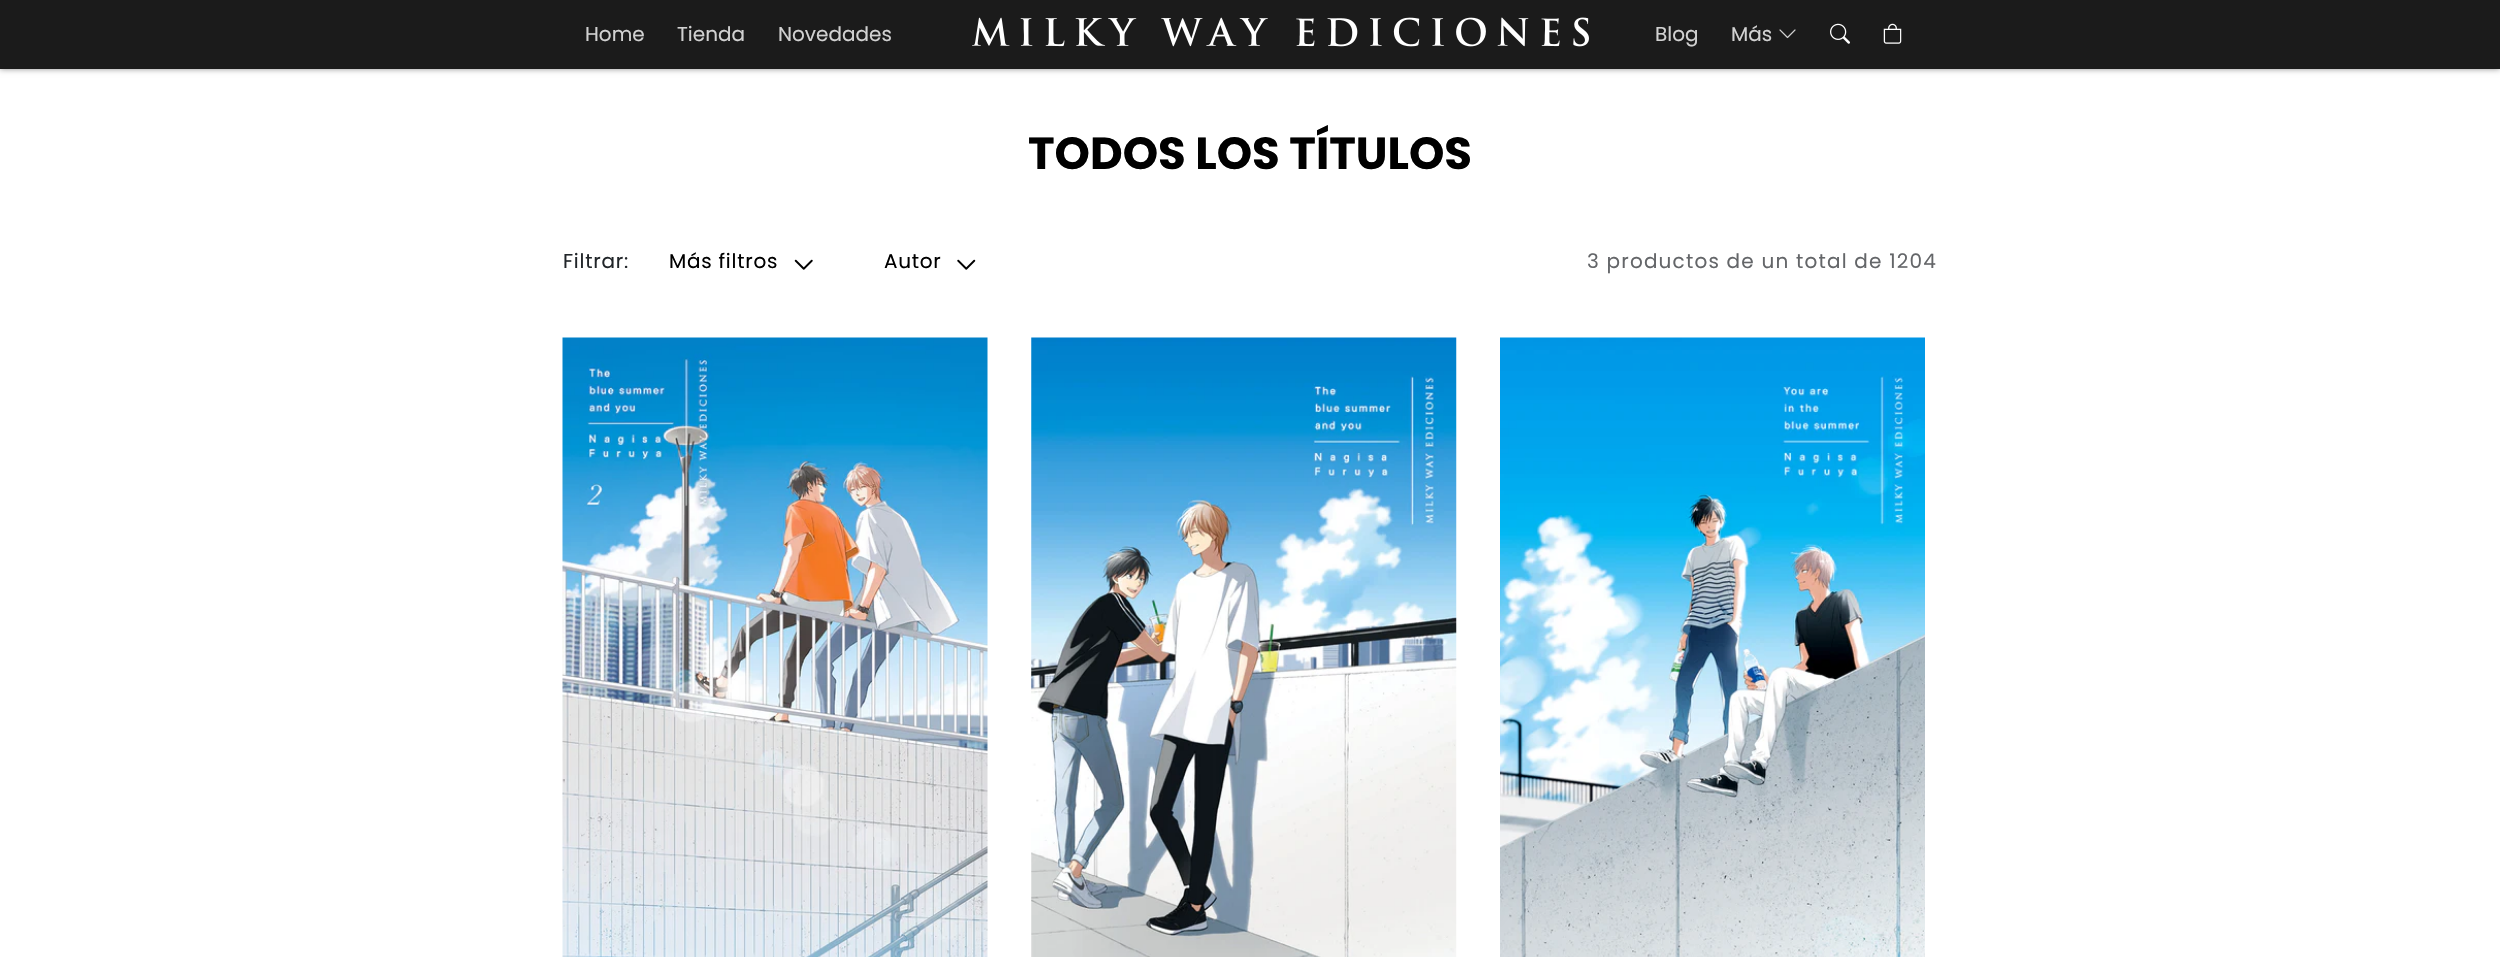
void draw(SkCanvas* canvas) {
  SkPaint paint;
  paint.setAntiAlias(true);
  auto face = [&](const char* family, int weight, float size, bool italic = false) {
    SkFontStyle style(weight, SkFontStyle::kNormal_Width,
      italic ? SkFontStyle::kItalic_Slant : SkFontStyle::kUpright_Slant);
    SkFont result(fontMgr->matchFamilyStyle(family, style), size);
    result.setSubpixel(true);
    return result;
  };
  auto writeSpaced = [&](const char* s, float x, float y, const SkFont& font, const SkPaint& ink, float letter, float word) {
    std::vector<SkGlyphID> glyphs(font.countText(s, strlen(s), SkTextEncoding::kUTF8));
    std::vector<float> xs(glyphs.size());
    font.textToGlyphs(s, strlen(s), SkTextEncoding::kUTF8, glyphs);
    font.getXPos(glyphs, xs, x);
    float extra = 0;
    for (size_t i = 0; i < glyphs.size(); i++) {
      xs[i] += extra;
      extra += letter + word * (glyphs[i] == font.unicharToGlyph(' '));
    }
    canvas->drawTextBlob(SkTextBlob::MakeFromPosHGlyphs(glyphs, xs, y, font), 0, 0, ink);
  };
  auto paste = [&](const char* path, float x, float y, float w, float h) {
    auto image = SkImages::DeferredFromEncodedData(SkData::MakeFromFileName(path));
    canvas->drawImageRect(image, SkRect::MakeXYWH(x, y, w, h), SkSamplingOptions());
  };
  canvas->clear(0xffffffff);
  paint.setColor(0x70000000);
  paint.setMaskFilter(SkMaskFilter::MakeBlur(kNormal_SkBlurStyle, 3));
  canvas->drawRect(SkRect::MakeXYWH(0, 0, 2500, 69), paint);
  paint.setMaskFilter(nullptr);
  paint.setColor(0xff1b1b1b);
  canvas->drawRect(SkRect::MakeXYWH(0, 0, 2500, 69), paint);
  paste("img/1.png", 972, 17, 617, 30);
  paste("img/2.png", 1779, 29, 17, 10);
  paste("img/3.png", 1830, 23, 20, 21);
  paste("img/4.png", 1883, 23, 19, 21);
  paste("img/5.png", 794, 259, 19, 11);
  paste("img/6.png", 957, 259, 19, 11);
  paste("img/7.png", 562, 337, 426, 620);
  paste("img/8.png", 1031, 337, 426, 620);
  paste("img/9.png", 1500, 337, 425, 620);
  auto f0 = face("Poppins", 400, 20);
  paint.setColor(0xffd1d1d1);
  {
    const struct { const char* s; float x, y; } items[] = {
      {"Home", 585, 41},
      {"Tienda", 677, 41},
      {"Novedades", 778, 41},
      {"Blog", 1655, 41},
      {"Más", 1731, 41},
    };
    for (auto [s, x, y] : items) {
      canvas->drawString(s, x, y, f0, paint);
    }
  }
  auto f1 = face("Poppins", 700, 45);
  paint.setColor(0xff000000);
  canvas->drawString("TODOS LOS TÍTULOS", 1028, 169, f1, paint);
  paint.setColor(0xff212529);
  writeSpaced("Filtrar:", 563, 268, f0, paint, 0.75f, 0);
  paint.setColor(0xff000000);
  writeSpaced("Más filtros", 669, 268, f0, paint, 0.75f, 0);
  writeSpaced("Autor", 884, 268, f0, paint, 0.75f, 0);
  paint.setColor(0xff646669);
  writeSpaced("3 productos de un total de 1204", 1587, 268, f0, paint, 1.2f, 0);
}
